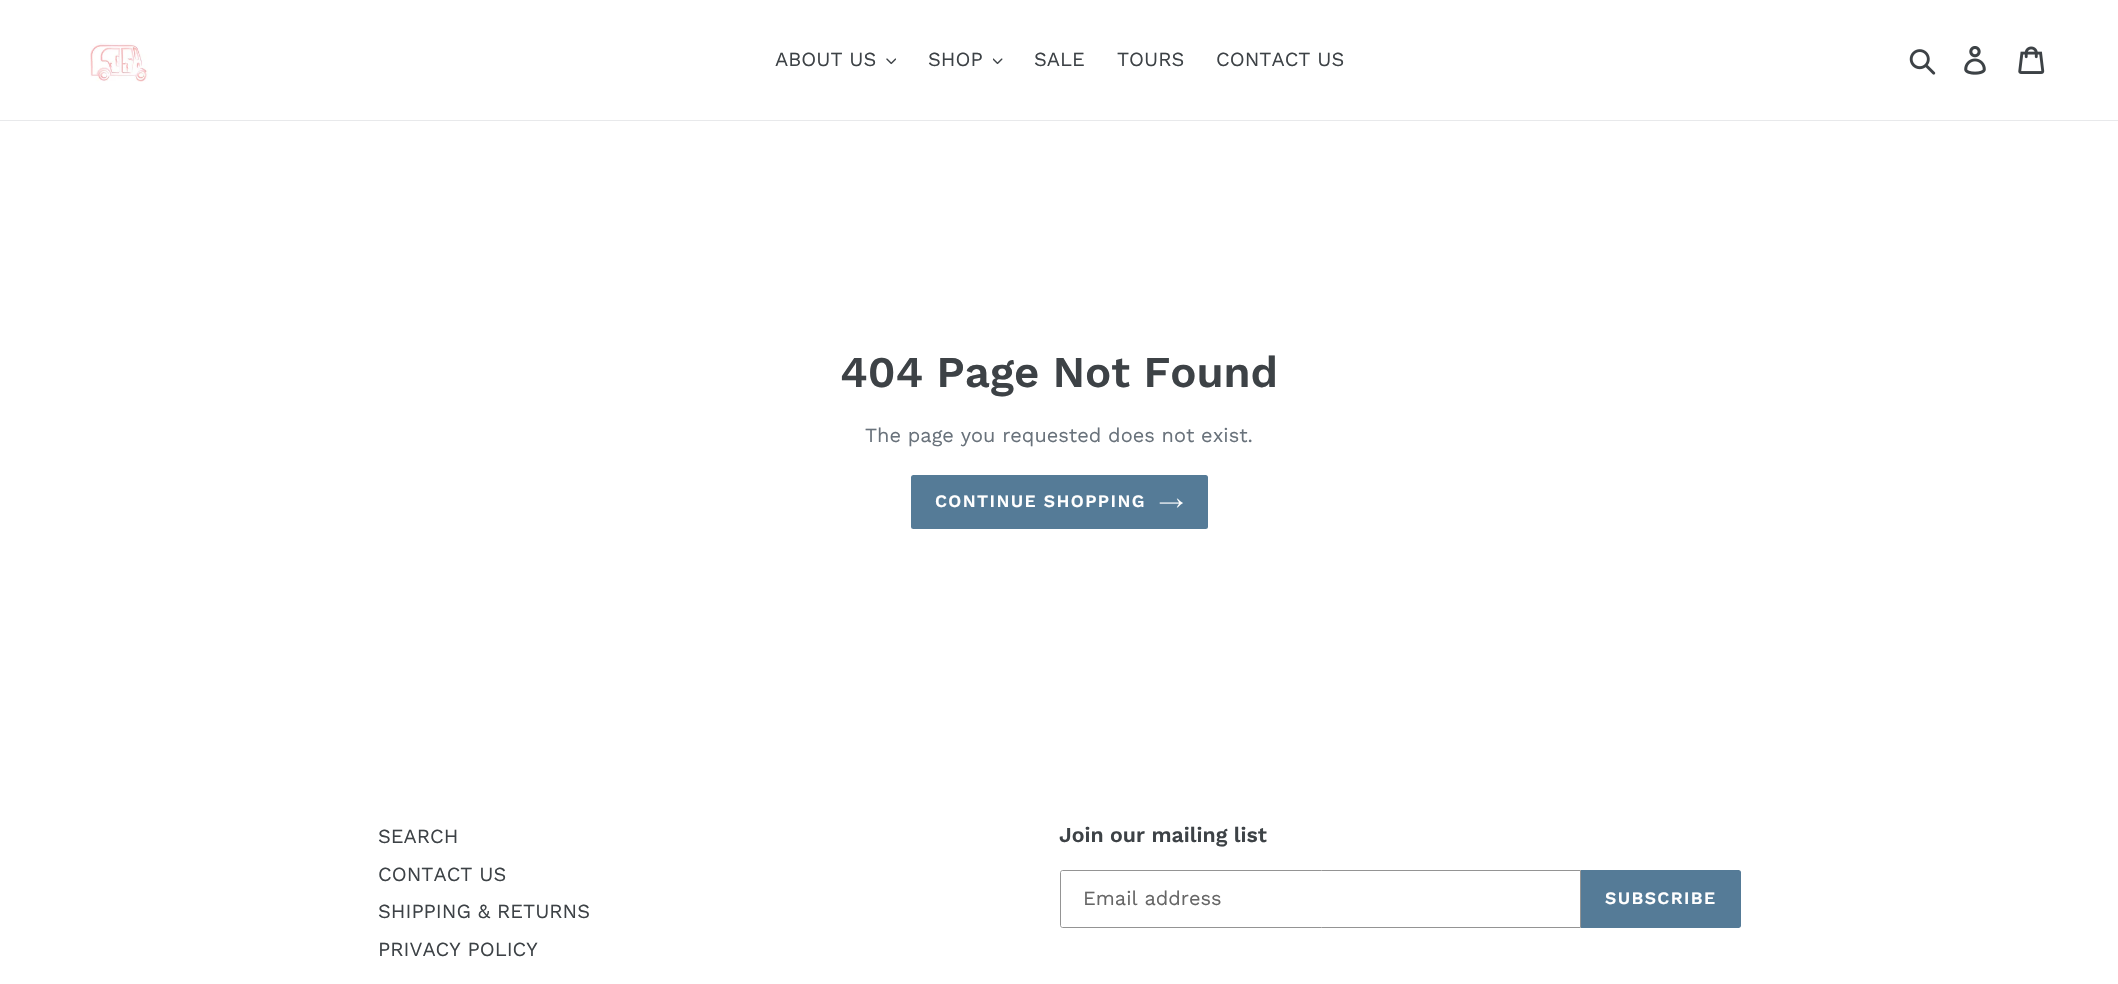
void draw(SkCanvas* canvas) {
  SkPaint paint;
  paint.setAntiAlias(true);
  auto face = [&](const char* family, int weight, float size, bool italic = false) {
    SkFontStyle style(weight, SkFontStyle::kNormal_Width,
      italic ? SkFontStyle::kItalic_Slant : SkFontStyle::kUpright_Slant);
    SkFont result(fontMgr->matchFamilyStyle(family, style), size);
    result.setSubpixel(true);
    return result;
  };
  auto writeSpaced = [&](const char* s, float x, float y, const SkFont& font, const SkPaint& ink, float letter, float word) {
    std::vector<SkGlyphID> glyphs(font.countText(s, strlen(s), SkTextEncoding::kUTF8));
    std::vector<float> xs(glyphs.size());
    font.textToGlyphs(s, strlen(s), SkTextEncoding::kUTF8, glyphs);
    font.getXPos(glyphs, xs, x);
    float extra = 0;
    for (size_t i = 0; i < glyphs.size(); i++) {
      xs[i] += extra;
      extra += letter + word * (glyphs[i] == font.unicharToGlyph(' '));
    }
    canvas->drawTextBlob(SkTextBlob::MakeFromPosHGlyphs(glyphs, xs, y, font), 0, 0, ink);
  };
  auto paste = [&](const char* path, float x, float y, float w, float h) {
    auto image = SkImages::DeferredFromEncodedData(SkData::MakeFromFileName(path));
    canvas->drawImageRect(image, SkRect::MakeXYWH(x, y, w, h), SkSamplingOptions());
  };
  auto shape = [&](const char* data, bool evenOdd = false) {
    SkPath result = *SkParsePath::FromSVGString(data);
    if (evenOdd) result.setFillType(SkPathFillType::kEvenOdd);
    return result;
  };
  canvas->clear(0xffffffff);
  paint.setColor(0xffe8e9eb);
  canvas->drawRect(SkRect::MakeXYWH(0, 120, 2118, 1), paint);
  paste("img/1.png", 90, 43, 58, 39);
  paste("img/2.png", 886, 58, 10, 7);
  paste("img/3.png", 993, 58, 10, 7);
  paste("img/4.png", 1909, 49, 27, 26);
  paste("img/5.png", 1964, 46, 22, 29);
  paste("img/6.png", 2018, 46, 27, 28);
  paint.setColor(0xff557b97);
  canvas->drawRoundRect(SkRect::MakeXYWH(911, 475, 297, 54), 2.5f, 2.5f, paint);
  paste("img/7.png", 1159, 498, 24, 10);
  paint.setStroke(true);
  paint.setStrokeWidth(1);
  paint.setColor(0xff949494);
  canvas->drawPath(shape("M1062.5 870.5H1580.5V927.5H1062.5C1061.5 927.5 1060.5 926.5 1060.5 925.5V872.5C1060.5 871.5 1061.5 870.5 1062.5 870.5Z"), paint);
  paint.setStroke(false);
  paint.setColor(0xff557b97);
  canvas->drawPath(shape("M1581 870H1738.5C1740 870 1741 871 1741 872.5V925.5C1741 927 1740 928 1738.5 928H1581Z"), paint);
  auto f0 = face("Work Sans", 400, 20);
  paint.setColor(0xff3d4246);
  {
    const struct { const char* s; float x, y; } items[] = {
      {"ABOUT US", 775, 66},
      {"SHOP", 928, 66},
      {"SALE", 1034, 66},
      {"TOURS", 1117, 66},
      {"CONTACT US", 1216, 66},
    };
    for (auto [s, x, y] : items) {
      canvas->drawString(s, x, y, f0, paint);
    }
  }
  auto f1 = face("Work Sans", 600, 43.75f);
  canvas->drawString("404 Page Not Found", 840, 387, f1, paint);
  paint.setColor(0xff69727b);
  canvas->drawString("The page you requested does not exist.", 865, 442, f0, paint);
  auto f2 = face("Work Sans", 600, 17.5f);
  paint.setColor(0xffffffff);
  writeSpaced("CONTINUE SHOPPING", 935, 507, f2, paint, 1.4f, 0);
  paint.setColor(0xff3d4246);
  {
    const struct { const char* s; float x, y; } items[] = {
      {"SEARCH", 378, 843},
      {"CONTACT US", 378, 881},
      {"SHIPPING & RETURNS", 378, 918},
      {"PRIVACY POLICY", 378, 956},
    };
    for (auto [s, x, y] : items) {
      canvas->drawString(s, x, y, f0, paint);
    }
  }
  auto f3 = face("Work Sans", 600, 21.25f);
  canvas->drawString("Join our mailing list", 1059, 842, f3, paint);
  paint.setColor(0xff666666);
  canvas->drawString("Email address", 1083, 905, f0, paint);
  paint.setColor(0xffffffff);
  writeSpaced("SUBSCRIBE", 1605, 904, f2, paint, 1.4f, 0);
}
